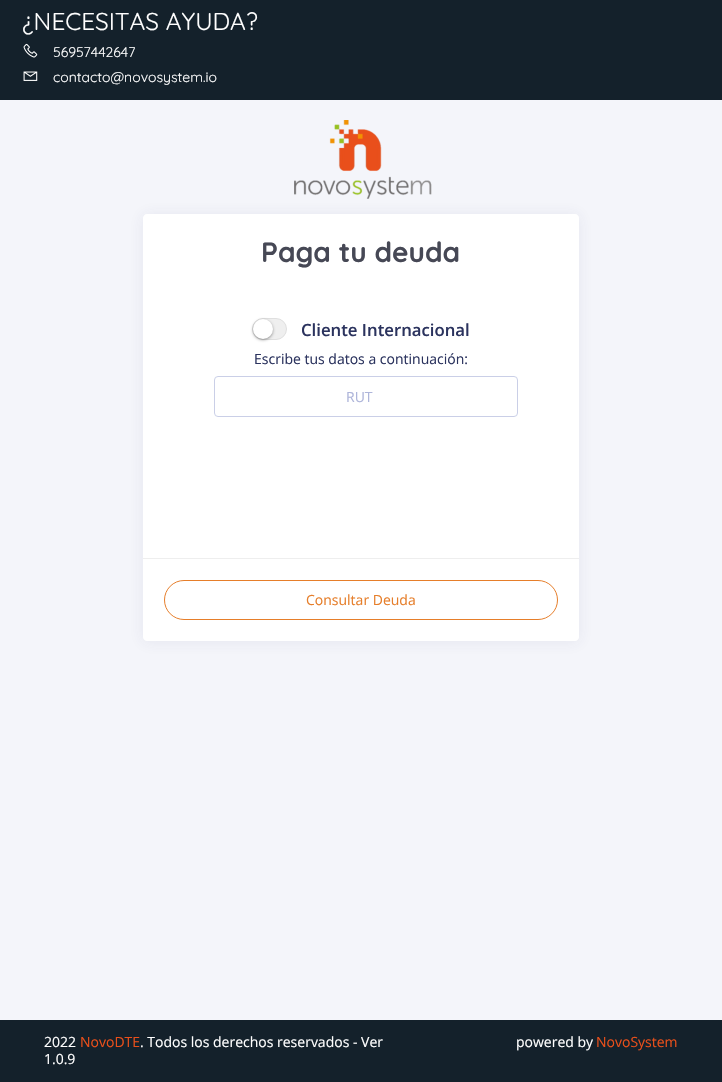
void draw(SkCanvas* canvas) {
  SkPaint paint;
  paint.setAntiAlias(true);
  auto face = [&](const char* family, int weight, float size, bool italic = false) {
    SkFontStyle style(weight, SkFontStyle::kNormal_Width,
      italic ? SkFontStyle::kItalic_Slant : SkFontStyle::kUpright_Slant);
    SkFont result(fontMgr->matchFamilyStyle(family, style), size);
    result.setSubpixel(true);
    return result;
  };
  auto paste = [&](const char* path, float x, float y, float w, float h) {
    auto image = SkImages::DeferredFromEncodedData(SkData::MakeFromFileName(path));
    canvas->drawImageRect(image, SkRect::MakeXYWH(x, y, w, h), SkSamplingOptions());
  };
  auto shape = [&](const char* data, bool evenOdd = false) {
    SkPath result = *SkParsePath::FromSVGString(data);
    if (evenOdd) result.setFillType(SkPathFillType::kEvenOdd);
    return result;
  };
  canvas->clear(0xfff4f5fa);
  paint.setColor(0xff14212b);
  canvas->drawRect(SkRect::MakeXYWH(0, 0, 722, 100), paint);
  paste("img/1.png", 23, 43, 15, 15);
  paste("img/2.png", 23, 71, 15, 10);
  paste("img/3.png", 294, 120, 138, 79);
  paint.setColor(0x123e396b);
  paint.setMaskFilter(SkMaskFilter::MakeBlur(kNormal_SkBlurStyle, 7.5f));
  canvas->drawRoundRect(SkRect::MakeXYWH(142, 214, 438, 429), 6, 6, paint);
  paint.setMaskFilter(nullptr);
  paint.setColor(0xffffffff);
  canvas->drawRoundRect(SkRect::MakeXYWH(143, 214, 436, 427), 5, 5, paint);
  canvas->drawPath(shape("M147 214H575C577 214 579 216 579 218V297H143V218C143 216 145 214 147 214Z"), paint);
  paint.setColor(0xffefefef);
  canvas->drawRoundRect(SkRect::MakeXYWH(252.5f, 318.5f, 34, 21), 10.5f, 10.5f, paint);
  paint.setStroke(true);
  paint.setStrokeWidth(1);
  paint.setColor(0xffdfdfdf);
  canvas->drawRoundRect(SkRect::MakeXYWH(252.5f, 318.5f, 34, 21), 10.5f, 10.5f, paint);
  paint.setStroke(false);
  paint.setColor(0x66000000);
  paint.setMaskFilter(SkMaskFilter::MakeBlur(kNormal_SkBlurStyle, 1.5f));
  canvas->drawRoundRect(SkRect::MakeXYWH(253, 320, 20, 20), 10, 10, paint);
  paint.setMaskFilter(nullptr);
  paint.setColor(0xffffffff);
  canvas->drawCircle(263, 329, 10, paint);
  paint.setStroke(true);
  paint.setColor(0xffcacfe7);
  canvas->drawRoundRect(SkRect::MakeXYWH(214.5f, 376.5f, 303, 40), 3.5f, 3.5f, paint);
  paint.setStroke(false);
  paint.setColor(0xffffffff);
  canvas->drawPath(shape("M143 558H579V637C579 639 577 641 575 641H147C145 641 143 639 143 637Z"), paint);
  paint.setColor(0xffeeeeee);
  canvas->drawRect(SkRect::MakeXYWH(143, 558, 436, 1), paint);
  paint.setStroke(true);
  paint.setColor(0xffe67e2a);
  canvas->drawRoundRect(SkRect::MakeXYWH(164.5f, 580.5f, 393, 39), 19.5f, 19.5f, paint);
  paint.setStroke(false);
  paint.setColor(0xff14212b);
  canvas->drawRect(SkRect::MakeXYWH(0, 1020, 722, 62), paint);
  auto f0 = face("Quicksand", 400, 24.4f);
  paint.setColor(0xffffffff);
  canvas->drawString("¿NECESITAS AYUDA?", 22, 30, f0, paint);
  auto f1 = face("Quicksand", 400, 14);
  canvas->drawString("56957442647", 53, 57, f1, paint);
  canvas->drawString("contacto@novosystem.io", 53, 82, f1, paint);
  auto f2 = face("Quicksand", 700, 28);
  paint.setColor(0xff464855);
  canvas->drawString("Paga tu deuda", 261, 262, f2, paint);
  auto f3 = face("Open Sans", 600, 16.75f);
  paint.setColor(0xff2b335e);
  canvas->drawString("Cliente Internacional", 301, 336, f3, paint);
  auto f4 = face("Open Sans", 400, 14);
  canvas->drawString("Escribe tus datos a continuación:", 254, 364, f4, paint);
  paint.setColor(0xffaeb5da);
  canvas->drawString("RUT", 346, 402, f4, paint);
  paint.setColor(0xffe67e2a);
  canvas->drawString("Consultar Deuda", 306, 605, f4, paint);
  paint.setColor(0xffffffff);
  canvas->drawString("2022", 44, 1047, f4, paint);
  paint.setColor(0xffe94f1a);
  canvas->drawString("NovoDTE", 80, 1047, f4, paint);
  paint.setColor(0xffffffff);
  {
    const struct { const char* s; float x, y; } items[] = {
      {". Todos los derechos reservados - Ver", 140, 1047},
      {"1.0.9", 44, 1064},
      {"powered by", 516, 1047},
    };
    for (auto [s, x, y] : items) {
      canvas->drawString(s, x, y, f4, paint);
    }
  }
  paint.setColor(0xffe94f1a);
  canvas->drawString("NovoSystem", 596, 1047, f4, paint);
}
